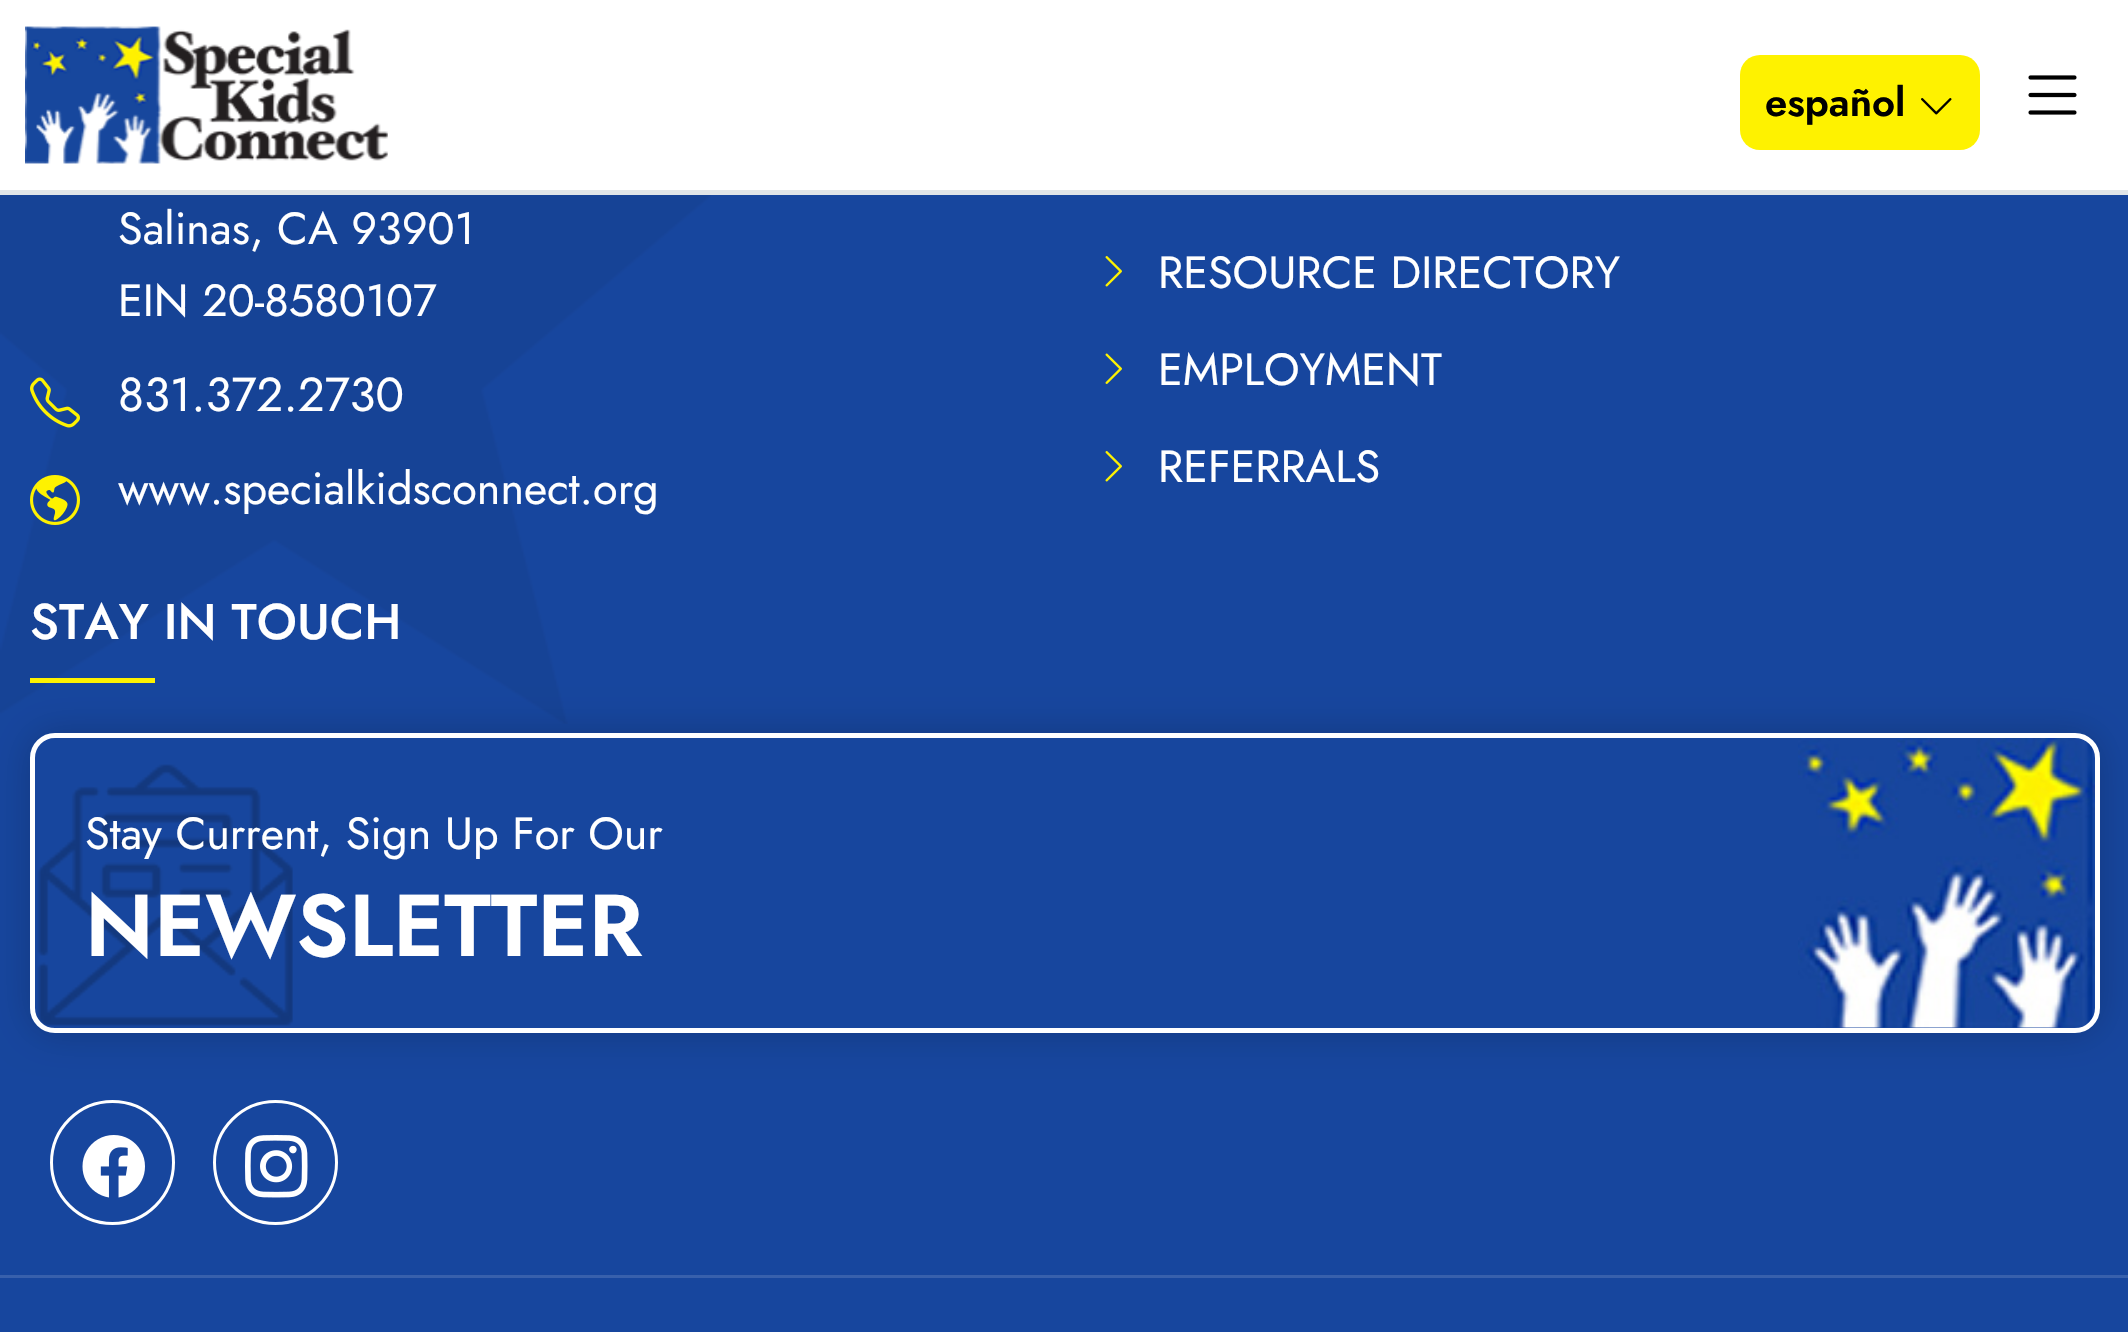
void draw(SkCanvas* canvas) {
  SkPaint paint;
  paint.setAntiAlias(true);
  auto face = [&](const char* family, int weight, float size, bool italic = false) {
    SkFontStyle style(weight, SkFontStyle::kNormal_Width,
      italic ? SkFontStyle::kItalic_Slant : SkFontStyle::kUpright_Slant);
    SkFont result(fontMgr->matchFamilyStyle(family, style), size);
    result.setSubpixel(true);
    return result;
  };
  auto paste = [&](const char* path, float x, float y, float w, float h) {
    auto image = SkImages::DeferredFromEncodedData(SkData::MakeFromFileName(path));
    canvas->drawImageRect(image, SkRect::MakeXYWH(x, y, w, h), SkSamplingOptions());
  };
  canvas->clear(0xff17469e);
  paint.setColor(0xffffffff);
  canvas->drawRect(SkRect::MakeXYWH(0, 0, 2128, 190), paint);
  paint.setColor(0xffe1e5e8);
  canvas->drawRect(SkRect::MakeXYWH(0, 190, 2128, 5), paint);
  paste("img/1.png", 25, 26, 363, 138);
  paint.setColor(0xfffef200);
  canvas->drawRoundRect(SkRect::MakeXYWH(1740, 55, 240, 95), 20, 20, paint);
  paste("img/2.png", 1921, 98, 31, 17);
  paste("img/3.png", 2028, 75, 49, 40);
  paste("img/4.png", 0, 195, 711, 529);
  paste("img/5.png", 30, 377, 50, 51);
  paste("img/6.png", 30, 475, 50, 50);
  paste("img/7.png", 1105, 256, 17, 31);
  paste("img/8.png", 1105, 353, 17, 31);
  paste("img/7.png", 1105, 451, 17, 31);
  canvas->drawRect(SkRect::MakeXYWH(30, 678, 125, 5), paint);
  paint.setColor(0x33000000);
  paint.setMaskFilter(SkMaskFilter::MakeBlur(kNormal_SkBlurStyle, 19));
  canvas->drawRoundRect(SkRect::MakeXYWH(30, 733, 2070, 300), 25, 25, paint);
  paint.setMaskFilter(nullptr);
  paint.setColor(0xff17469e);
  canvas->drawRoundRect(SkRect::MakeXYWH(30, 733, 2070, 300), 25, 25, paint);
  paste("img/9.png", 1798, 737, 297, 291);
  paint.setStroke(true);
  paint.setStrokeWidth(5);
  paint.setColor(0xffffffff);
  canvas->drawRoundRect(SkRect::MakeXYWH(32.5f, 735.5f, 2065, 295), 22.5f, 22.5f, paint);
  paste("img/10.png", 37, 764, 256, 262);
  paint.setStrokeWidth(3);
  canvas->drawCircle(112.5f, 1162.5f, 61, paint);
  paste("img/11.png", 82, 1135, 63, 63);
  canvas->drawCircle(275.5f, 1162.5f, 61, paint);
  paste("img/12.png", 245, 1135, 63, 63);
  paint.setStroke(false);
  paint.setColor(0xff3860ac);
  canvas->drawRect(SkRect::MakeXYWH(0, 1275, 2128, 3), paint);
  auto f0 = face("Jost", 600, 40);
  paint.setColor(0xff000000);
  canvas->drawString("español", 1765, 116, f0, paint);
  auto f1 = face("Jost", 400, 45);
  paint.setColor(0xffffffff);
  canvas->drawString("Salinas, CA 93901", 118, 244, f1, paint);
  canvas->drawString("EIN 20-8580107", 118, 316, f1, paint);
  auto f2 = face("Jost", 400, 47.5f);
  canvas->drawString("831.372.2730", 118, 411, f2, paint);
  {
    const struct { const char* s; float x, y; } items[] = {
      {"www.specialkidsconnect.org", 118, 504},
      {"RESOURCE DIRECTORY", 1158, 288},
      {"EMPLOYMENT", 1158, 385},
      {"REFERRALS", 1158, 482},
    };
    for (auto [s, x, y] : items) {
      canvas->drawString(s, x, y, f1, paint);
    }
  }
  auto f3 = face("Jost", 500, 50);
  canvas->drawString("STAY IN TOUCH", 30, 639, f3, paint);
  canvas->drawString("Stay Current, Sign Up For Our", 85, 849, f1, paint);
  auto f4 = face("Jost", 600, 87.5f);
  canvas->drawString("NEWSLETTER", 85, 956, f4, paint);
}
